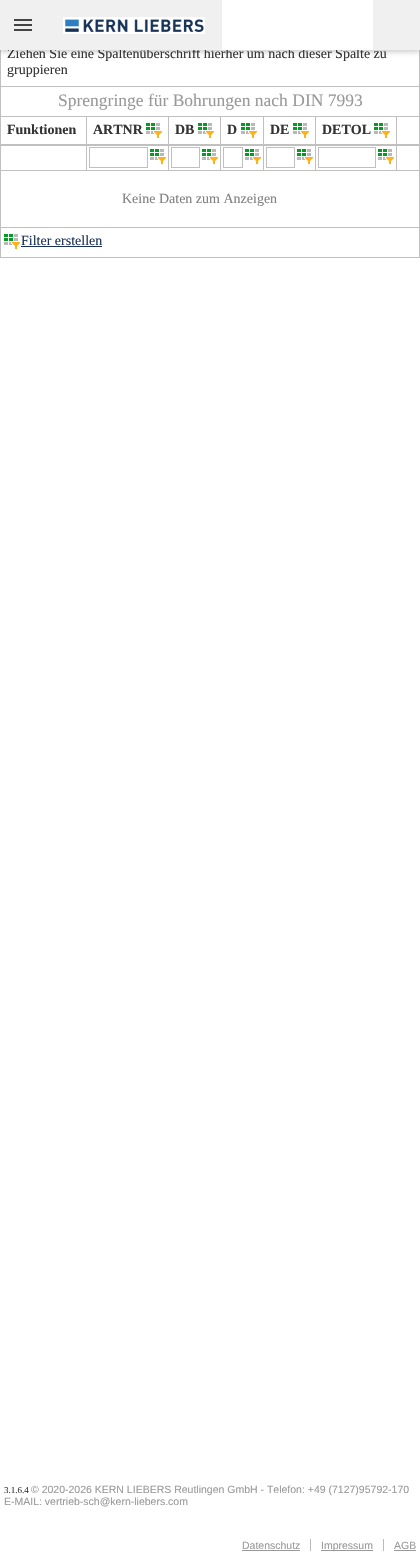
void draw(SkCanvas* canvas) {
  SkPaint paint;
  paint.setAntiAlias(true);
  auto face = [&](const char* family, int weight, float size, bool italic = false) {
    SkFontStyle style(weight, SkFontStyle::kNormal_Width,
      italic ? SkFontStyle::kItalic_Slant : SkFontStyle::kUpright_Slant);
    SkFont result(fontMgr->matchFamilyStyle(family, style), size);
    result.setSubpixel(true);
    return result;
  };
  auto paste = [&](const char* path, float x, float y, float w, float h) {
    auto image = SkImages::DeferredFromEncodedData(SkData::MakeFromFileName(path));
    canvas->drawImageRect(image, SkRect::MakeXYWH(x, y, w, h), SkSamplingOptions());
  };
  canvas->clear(0xffffffff);
  paint.setStroke(true);
  paint.setStrokeWidth(1);
  paint.setColor(0xffc0c0c0);
  canvas->drawRect(SkRect::MakeXYWH(0.5f, 7.5f, 419, 250), paint);
  paint.setStroke(false);
  paint.setColor(0x33000000);
  paint.setMaskFilter(SkMaskFilter::MakeBlur(kNormal_SkBlurStyle, 2.5f));
  canvas->drawRect(SkRect::MakeXYWH(0, 2, 420, 50), paint);
  paint.setMaskFilter(nullptr);
  {
    const struct { float x, y, w, h; SkColor color; } items[] = {
      {1, 86, 418, 1, 0xffc0c0c0},
      {1, 116, 418, 1, 0xffc0c0c0},
      {1, 145, 418, 1, 0xffc0c0c0},
      {86, 117, 1, 54, 0xffc0c0c0},
      {1, 144, 86, 1, 0xffc0c0c0},
      {168, 117, 1, 54, 0xffc0c0c0},
      {87, 144, 82, 1, 0xffc0c0c0},
    };
    for (auto [x, y, w, h, color] : items) {
      paint.setColor(color);
      canvas->drawRect(SkRect::MakeXYWH(x, y, w, h), paint);
    }
  }
  paste("img/3.png", 146, 123, 16, 15);
  canvas->drawRect(SkRect::MakeXYWH(220, 117, 1, 54), paint);
  canvas->drawRect(SkRect::MakeXYWH(169, 144, 52, 1), paint);
  paste("img/3.png", 198, 123, 16, 15);
  canvas->drawRect(SkRect::MakeXYWH(263, 117, 1, 54), paint);
  canvas->drawRect(SkRect::MakeXYWH(221, 144, 43, 1), paint);
  paste("img/4.png", 241, 123, 16, 15);
  canvas->drawRect(SkRect::MakeXYWH(315, 117, 1, 54), paint);
  canvas->drawRect(SkRect::MakeXYWH(264, 144, 52, 1), paint);
  paste("img/3.png", 293, 123, 16, 15);
  canvas->drawRect(SkRect::MakeXYWH(396, 117, 1, 54), paint);
  canvas->drawRect(SkRect::MakeXYWH(316, 144, 103, 1), paint);
  paste("img/3.png", 374, 123, 16, 15);
  paint.setStroke(true);
  canvas->drawRect(SkRect::MakeXYWH(89.5f, 147.5f, 58, 20), paint);
  paste("img/3.png", 150, 149, 16, 15);
  canvas->drawRect(SkRect::MakeXYWH(171.5f, 147.5f, 28, 20), paint);
  paste("img/3.png", 202, 149, 16, 15);
  canvas->drawRect(SkRect::MakeXYWH(223.5f, 147.5f, 19, 20), paint);
  paste("img/5.png", 245, 149, 16, 15);
  canvas->drawRect(SkRect::MakeXYWH(266.5f, 147.5f, 28, 20), paint);
  paste("img/3.png", 297, 149, 16, 15);
  canvas->drawRect(SkRect::MakeXYWH(318.5f, 147.5f, 57, 20), paint);
  paste("img/3.png", 378, 149, 16, 15);
  paint.setStroke(false);
  canvas->drawRect(SkRect::MakeXYWH(1, 170, 418, 1), paint);
  canvas->drawRect(SkRect::MakeXYWH(1, 227, 418, 1), paint);
  paste("img/3.png", 4, 234, 16, 15);
  {
    const struct { float x, y, w, h; SkColor color; } items[] = {
      {21, 246, 81, 1, 0xff1a3258},
      {310, 1539, 1, 12, 0xffbbbbbb},
      {242, 1550, 58, 1, 0xff999999},
      {383, 1539, 1, 12, 0xffbbbbbb},
      {321, 1550, 52, 1, 0xff999999},
      {394, 1550, 22, 1, 0xff999999},
    };
    for (auto [x, y, w, h, color] : items) {
      paint.setColor(color);
      canvas->drawRect(SkRect::MakeXYWH(x, y, w, h), paint);
    }
  }
  auto f0 = face("Liberation Serif", 400, 14);
  paint.setColor(0xff333333);
  canvas->drawString("Ziehen Sie eine Spaltenüberschrift hierher um nach dieser Spalte zu", 7, 58, f0, paint);
  paint.setColor(0xfff0f0f0);
  canvas->drawRect(SkRect::MakeXYWH(373, 0, 47, 50), paint);
  canvas->drawRect(SkRect::MakeXYWH(0, 0, 222, 50), paint);
  paste("img/2.png", 63, 17, 142, 17);
  paste("img/1.png", 14, 19, 18, 12);
  paint.setColor(0xffffffff);
  canvas->drawRect(SkRect::MakeXYWH(222, 0, 151, 50), paint);
  paint.setColor(0xff333333);
  canvas->drawString("gruppieren", 7, 74, f0, paint);
  auto f1 = face("Liberation Serif", 400, 17.5f);
  paint.setColor(0xff999999);
  canvas->drawString("Sprengringe für Bohrungen nach DIN 7993", 58, 106, f1, paint);
  auto f2 = face("Liberation Serif", 700, 14);
  paint.setColor(0xff333333);
  {
    const struct { const char* s; float x, y; } items[] = {
      {"Funktionen", 7, 134},
      {"ARTNR", 93, 134},
      {"DB", 175, 134},
      {"D", 227, 134},
      {"DE", 270, 134},
      {"DETOL", 322, 134},
    };
    for (auto [s, x, y] : items) {
      canvas->drawString(s, x, y, f2, paint);
    }
  }
  paint.setColor(0xff808080);
  canvas->drawString("Keine Daten zum Anzeigen", 122, 203, f0, paint);
  paint.setColor(0xff1a3258);
  canvas->drawString("Filter erstellen", 21, 245, f0, paint);
  auto f3 = face("Liberation Serif", 400, 9);
  paint.setColor(0xff333333);
  canvas->drawString("3.1.6.4", 4, 1493, f3, paint);
  auto f4 = face("Liberation Sans", 400, 10.5f);
  paint.setColor(0xff999999);
  {
    const struct { const char* s; float x, y; } items[] = {
      {"© 2020-2026 KERN LIEBERS Reutlingen GmbH - Telefon: +49 (7127)95792-170", 31, 1493},
      {"E-MAIL: vertrieb-sch@kern-liebers.com", 4, 1505},
      {"Datenschutz", 242, 1549},
      {"Impressum", 321, 1549},
      {"AGB", 394, 1549},
    };
    for (auto [s, x, y] : items) {
      canvas->drawString(s, x, y, f4, paint);
    }
  }
}
